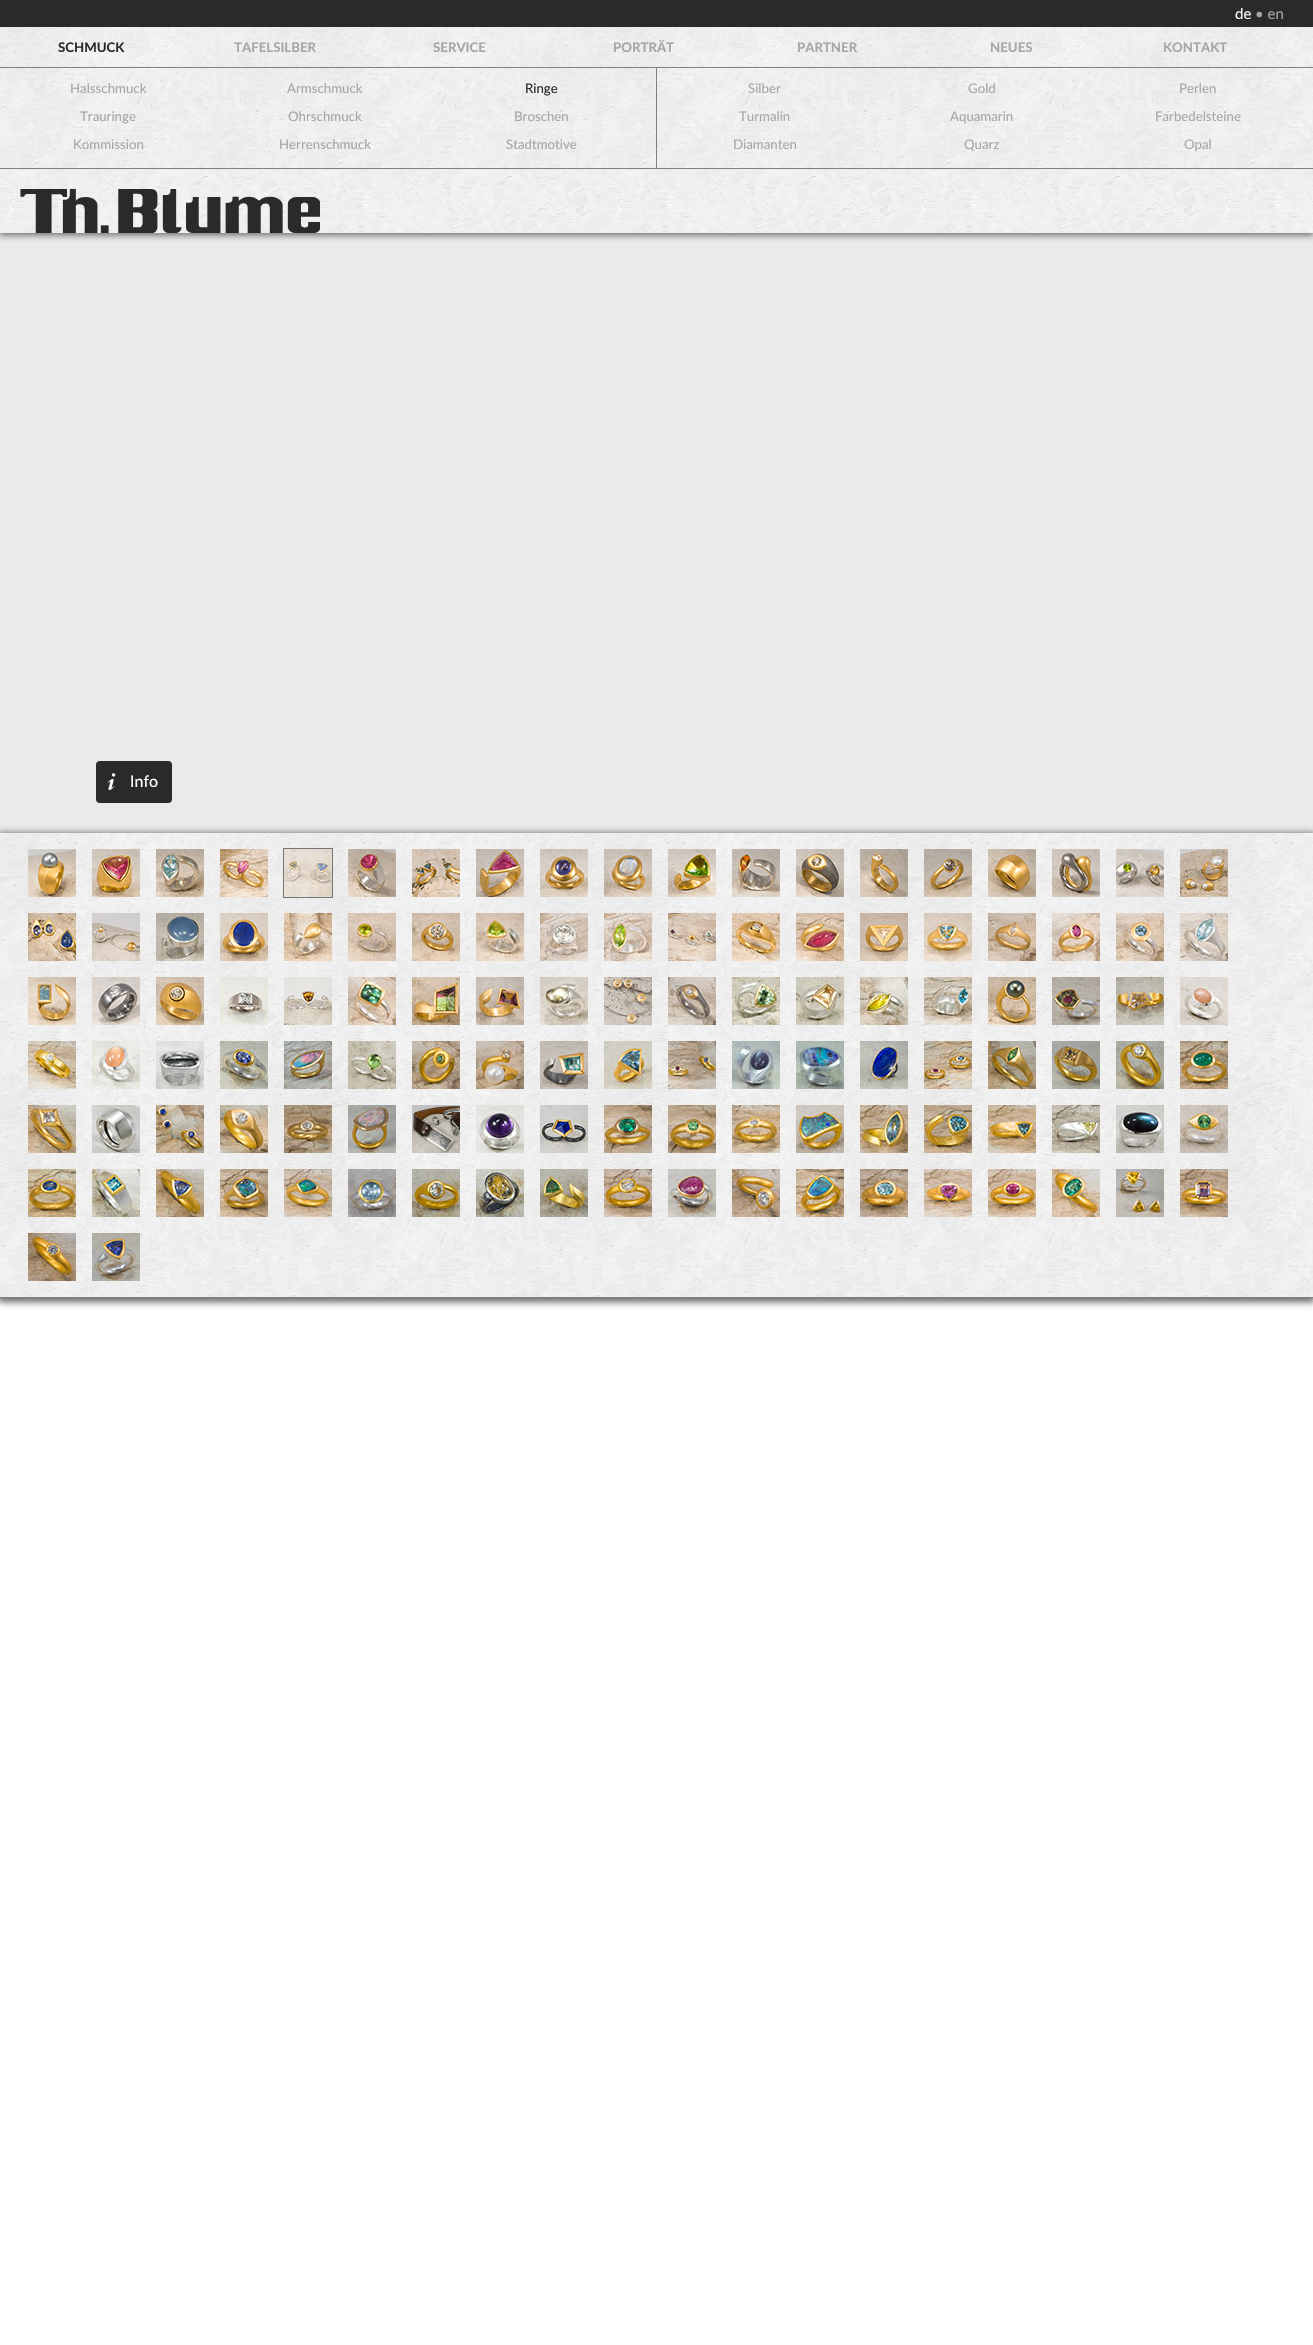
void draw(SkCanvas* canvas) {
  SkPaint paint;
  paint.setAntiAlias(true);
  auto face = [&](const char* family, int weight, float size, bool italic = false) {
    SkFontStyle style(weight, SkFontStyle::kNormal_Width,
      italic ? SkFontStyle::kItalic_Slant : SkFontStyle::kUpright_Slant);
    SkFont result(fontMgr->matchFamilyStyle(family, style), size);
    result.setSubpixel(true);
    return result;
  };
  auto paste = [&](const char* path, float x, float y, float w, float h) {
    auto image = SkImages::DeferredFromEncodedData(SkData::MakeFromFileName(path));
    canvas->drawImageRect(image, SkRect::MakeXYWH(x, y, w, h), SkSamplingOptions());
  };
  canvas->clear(0xffffffff);
  paint.setColor(0xffeaeaea);
  canvas->drawRect(SkRect::MakeXYWH(0, 233, 1313, 600), paint);
  paint.setColor(0xff666666);
  paint.setMaskFilter(SkMaskFilter::MakeBlur(kNormal_SkBlurStyle, 3.5f));
  canvas->drawRect(SkRect::MakeXYWH(-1, 0, 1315, 235), paint);
  paint.setMaskFilter(nullptr);
  paste("img/1.png", 0, 27, 1313, 206);
  {
    const struct { float x, y, w, h; SkColor color; } items[] = {
      {0, 0, 1313, 27, 0xff2a2a2a},
      {0, 67, 1313, 1, 0xff808080},
      {0, 168, 1313, 1, 0xff808080},
      {656, 67, 1, 101, 0xff808080},
    };
    for (auto [x, y, w, h, color] : items) {
      paint.setColor(color);
      canvas->drawRect(SkRect::MakeXYWH(x, y, w, h), paint);
    }
  }
  paste("img/2.png", 20, 189, 300, 44);
  paint.setColor(0xff2a2a2a);
  canvas->drawRoundRect(SkRect::MakeXYWH(96, 761, 76, 42), 4, 4, paint);
  paste("img/3.png", 107, 773, 9, 18);
  paint.setColor(0xff666666);
  paint.setMaskFilter(SkMaskFilter::MakeBlur(kNormal_SkBlurStyle, 3.5f));
  canvas->drawRect(SkRect::MakeXYWH(-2, 833, 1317, 469), paint);
  paint.setMaskFilter(nullptr);
  paste("img/4.png", 0, 833, 1313, 464);
  paint.setColor(0xff808080);
  canvas->drawRect(SkRect::MakeXYWH(0, 1297, 1313, 1), paint);
  paste("img/5.png", 28, 849, 48, 48);
  paste("img/6.png", 92, 849, 48, 48);
  paste("img/7.png", 156, 849, 48, 48);
  paste("img/8.png", 220, 849, 48, 48);
  paste("img/9.png", 284, 849, 48, 48);
  paint.setStroke(true);
  paint.setStrokeWidth(1);
  paint.setColor(0x80000000);
  canvas->drawRect(SkRect::MakeXYWH(283.5f, 848.5f, 49, 49), paint);
  paste("img/10.png", 348, 849, 48, 48);
  paste("img/11.png", 412, 849, 48, 48);
  paste("img/12.png", 476, 849, 48, 48);
  paste("img/13.png", 540, 849, 48, 48);
  paste("img/14.png", 604, 849, 48, 48);
  paste("img/15.png", 668, 849, 48, 48);
  paste("img/16.png", 732, 849, 48, 48);
  paste("img/17.png", 796, 849, 48, 48);
  paste("img/18.png", 860, 849, 48, 48);
  paste("img/19.png", 924, 849, 48, 48);
  paste("img/20.png", 988, 849, 48, 48);
  paste("img/21.png", 1052, 849, 48, 48);
  paste("img/22.png", 1116, 849, 48, 48);
  paste("img/23.png", 1180, 849, 48, 48);
  paste("img/24.png", 28, 913, 48, 48);
  paste("img/25.png", 92, 913, 48, 48);
  paste("img/26.png", 156, 913, 48, 48);
  paste("img/27.png", 220, 913, 48, 48);
  paste("img/28.png", 284, 913, 48, 48);
  paste("img/29.png", 348, 913, 48, 48);
  paste("img/30.png", 412, 913, 48, 48);
  paste("img/31.png", 476, 913, 48, 48);
  paste("img/32.png", 540, 913, 48, 48);
  paste("img/33.png", 604, 913, 48, 48);
  paste("img/34.png", 668, 913, 48, 48);
  paste("img/35.png", 732, 913, 48, 48);
  paste("img/36.png", 796, 913, 48, 48);
  paste("img/37.png", 860, 913, 48, 48);
  paste("img/38.png", 924, 913, 48, 48);
  paste("img/39.png", 988, 913, 48, 48);
  paste("img/40.png", 1052, 913, 48, 48);
  paste("img/41.png", 1116, 913, 48, 48);
  paste("img/42.png", 1180, 913, 48, 48);
  paste("img/43.png", 28, 977, 48, 48);
  paste("img/44.png", 92, 977, 48, 48);
  paste("img/45.png", 156, 977, 48, 48);
  paste("img/46.png", 220, 977, 48, 48);
  paste("img/47.png", 284, 977, 48, 48);
  paste("img/48.png", 348, 977, 48, 48);
  paste("img/49.png", 412, 977, 48, 48);
  paste("img/50.png", 476, 977, 48, 48);
  paste("img/51.png", 540, 977, 48, 48);
  paste("img/52.png", 604, 977, 48, 48);
  paste("img/53.png", 668, 977, 48, 48);
  paste("img/54.png", 732, 977, 48, 48);
  paste("img/55.png", 796, 977, 48, 48);
  paste("img/56.png", 860, 977, 48, 48);
  paste("img/57.png", 924, 977, 48, 48);
  paste("img/58.png", 988, 977, 48, 48);
  paste("img/59.png", 1052, 977, 48, 48);
  paste("img/60.png", 1116, 977, 48, 48);
  paste("img/61.png", 1180, 977, 48, 48);
  paste("img/62.png", 28, 1041, 48, 48);
  paste("img/63.png", 92, 1041, 48, 48);
  paste("img/64.png", 156, 1041, 48, 48);
  paste("img/65.png", 220, 1041, 48, 48);
  paste("img/66.png", 284, 1041, 48, 48);
  paste("img/67.png", 348, 1041, 48, 48);
  paste("img/68.png", 412, 1041, 48, 48);
  paste("img/69.png", 476, 1041, 48, 48);
  paste("img/70.png", 540, 1041, 48, 48);
  paste("img/71.png", 604, 1041, 48, 48);
  paste("img/72.png", 668, 1041, 48, 48);
  paste("img/73.png", 732, 1041, 48, 48);
  paste("img/74.png", 796, 1041, 48, 48);
  paste("img/75.png", 860, 1041, 48, 48);
  paste("img/76.png", 924, 1041, 48, 48);
  paste("img/77.png", 988, 1041, 48, 48);
  paste("img/78.png", 1052, 1041, 48, 48);
  paste("img/79.png", 1116, 1041, 48, 48);
  paste("img/80.png", 1180, 1041, 48, 48);
  paste("img/81.png", 28, 1105, 48, 48);
  paste("img/82.png", 92, 1105, 48, 48);
  paste("img/83.png", 156, 1105, 48, 48);
  paste("img/84.png", 220, 1105, 48, 48);
  paste("img/85.png", 284, 1105, 48, 48);
  paste("img/86.png", 348, 1105, 48, 48);
  paste("img/87.png", 412, 1105, 48, 48);
  paste("img/88.png", 476, 1105, 48, 48);
  paste("img/89.png", 540, 1105, 48, 48);
  paste("img/90.png", 604, 1105, 48, 48);
  paste("img/91.png", 668, 1105, 48, 48);
  paste("img/92.png", 732, 1105, 48, 48);
  paste("img/93.png", 796, 1105, 48, 48);
  paste("img/94.png", 860, 1105, 48, 48);
  paste("img/95.png", 924, 1105, 48, 48);
  paste("img/96.png", 988, 1105, 48, 48);
  paste("img/97.png", 1052, 1105, 48, 48);
  paste("img/98.png", 1116, 1105, 48, 48);
  paste("img/99.png", 1180, 1105, 48, 48);
  paste("img/100.png", 28, 1169, 48, 48);
  paste("img/101.png", 92, 1169, 48, 48);
  paste("img/102.png", 156, 1169, 48, 48);
  paste("img/103.png", 220, 1169, 48, 48);
  paste("img/104.png", 284, 1169, 48, 48);
  paste("img/105.png", 348, 1169, 48, 48);
  paste("img/106.png", 412, 1169, 48, 48);
  paste("img/107.png", 476, 1169, 48, 48);
  paste("img/108.png", 540, 1169, 48, 48);
  paste("img/109.png", 604, 1169, 48, 48);
  paste("img/110.png", 668, 1169, 48, 48);
  paste("img/111.png", 732, 1169, 48, 48);
  paste("img/112.png", 796, 1169, 48, 48);
  paste("img/113.png", 860, 1169, 48, 48);
  paste("img/114.png", 924, 1169, 48, 48);
  paste("img/115.png", 988, 1169, 48, 48);
  paste("img/116.png", 1052, 1169, 48, 48);
  paste("img/117.png", 1116, 1169, 48, 48);
  paste("img/118.png", 1180, 1169, 48, 48);
  paste("img/119.png", 28, 1233, 48, 48);
  paste("img/120.png", 92, 1233, 48, 48);
  auto f0 = face("Lato", 400, 15);
  paint.setStroke(false);
  paint.setColor(0xfff3f3f2);
  canvas->drawString("de", 1235, 19, f0, paint);
  paint.setColor(0xffa6a6a6);
  canvas->drawString("• en", 1255, 19, f0, paint);
  auto f1 = face("Lato", 700, 13.25f);
  paint.setColor(0xff2a2a2a);
  canvas->drawString("SCHMUCK", 58, 52, f1, paint);
  paint.setColor(0xffa6a6a6);
  {
    const struct { const char* s; float x, y; } items[] = {
      {"TAFELSILBER", 234, 52},
      {"SERVICE", 433, 52},
      {"PORTRÄT", 613, 52},
      {"PARTNER", 797, 52},
      {"NEUES", 990, 52},
      {"KONTAKT", 1163, 52},
    };
    for (auto [s, x, y] : items) {
      canvas->drawString(s, x, y, f1, paint);
    }
  }
  auto f2 = face("Lato", 400, 13.25f);
  canvas->drawString("Halsschmuck", 70, 93, f2, paint);
  canvas->drawString("Armschmuck", 287, 93, f2, paint);
  paint.setColor(0xff2a2a2a);
  canvas->drawString("Ringe", 525, 93, f2, paint);
  paint.setColor(0xffa6a6a6);
  {
    const struct { const char* s; float x, y; } items[] = {
      {"Trauringe", 80, 121},
      {"Ohrschmuck", 288, 121},
      {"Broschen", 514, 121},
      {"Kommission", 73, 149},
      {"Herrenschmuck", 279, 149},
      {"Stadtmotive", 506, 149},
      {"Silber", 748, 93},
      {"Gold", 968, 93},
      {"Perlen", 1179, 93},
      {"Turmalin", 739, 121},
      {"Aquamarin", 950, 121},
      {"Farbedelsteine", 1155, 121},
      {"Diamanten", 733, 149},
      {"Quarz", 964, 149},
      {"Opal", 1184, 149},
    };
    for (auto [s, x, y] : items) {
      canvas->drawString(s, x, y, f2, paint);
    }
  }
  auto f3 = face("Lato", 400, 16);
  paint.setColor(0xffffffff);
  canvas->drawString("Info", 130, 787, f3, paint);
}
